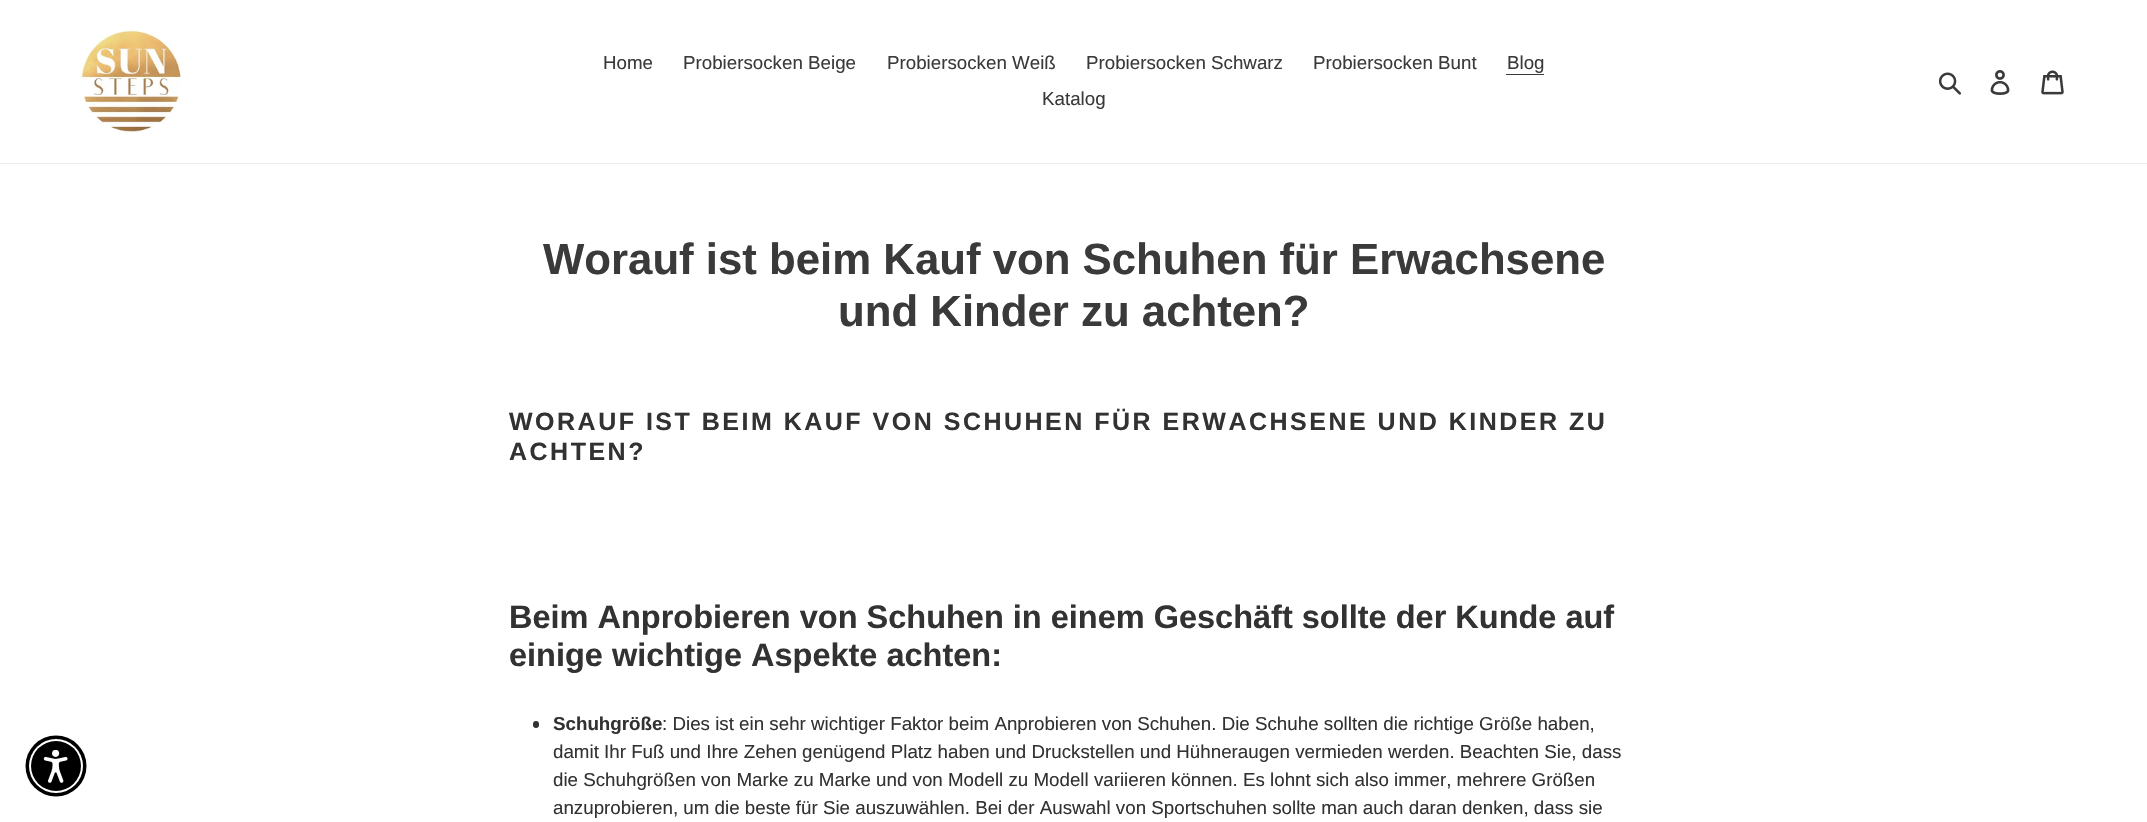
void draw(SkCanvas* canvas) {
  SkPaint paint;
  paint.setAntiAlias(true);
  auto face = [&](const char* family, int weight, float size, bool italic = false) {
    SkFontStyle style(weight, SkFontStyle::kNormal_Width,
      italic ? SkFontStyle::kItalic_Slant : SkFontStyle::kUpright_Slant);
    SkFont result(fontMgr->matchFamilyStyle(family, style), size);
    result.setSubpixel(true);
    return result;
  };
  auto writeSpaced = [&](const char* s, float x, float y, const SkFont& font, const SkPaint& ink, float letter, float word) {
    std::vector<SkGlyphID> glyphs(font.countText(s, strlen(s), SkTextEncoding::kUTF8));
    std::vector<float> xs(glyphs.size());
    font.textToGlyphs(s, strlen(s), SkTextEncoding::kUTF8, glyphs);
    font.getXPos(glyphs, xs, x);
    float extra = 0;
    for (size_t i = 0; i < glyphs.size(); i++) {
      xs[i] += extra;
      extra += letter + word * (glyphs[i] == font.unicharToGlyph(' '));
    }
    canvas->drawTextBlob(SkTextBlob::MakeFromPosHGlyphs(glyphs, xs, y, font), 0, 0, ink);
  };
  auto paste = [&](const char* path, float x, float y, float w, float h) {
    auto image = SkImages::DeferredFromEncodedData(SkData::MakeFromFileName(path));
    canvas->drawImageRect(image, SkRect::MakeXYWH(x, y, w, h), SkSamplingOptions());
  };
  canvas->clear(0xffffffff);
  paint.setColor(0xffebebeb);
  canvas->drawRect(SkRect::MakeXYWH(0, 163, 2147, 1), paint);
  paste("img/1.png", 80, 30, 101, 103);
  paint.setColor(0xff3a3a3a);
  canvas->drawRect(SkRect::MakeXYWH(1506, 74, 38, 1), paint);
  paste("img/2.png", 1938, 72, 23, 23);
  paste("img/3.png", 1990, 70, 20, 25);
  paste("img/4.png", 2041, 70, 23, 25);
  paint.setColor(0xff000000);
  canvas->drawCircle(56, 766, 30.5f, paint);
  paint.setColor(0xffffffff);
  canvas->drawCircle(56, 766, 27, paint);
  paint.setColor(0xff000000);
  canvas->drawCircle(56, 766, 25, paint);
  paste("img/5.png", 43, 750, 25, 33);
  paint.setColor(0xff333232);
  canvas->drawRoundRect(SkRect::MakeXYWH(533, 721, 6, 7), 3, 3, paint);
  auto f0 = face("Liberation Sans", 400, 18.75f);
  paint.setColor(0xff3a3a3a);
  {
    const struct { const char* s; float x, y; } items[] = {
      {"Home", 603, 69},
      {"Probiersocken Beige", 683, 69},
      {"Probiersocken Weiß", 887, 69},
      {"Probiersocken Schwarz", 1086, 69},
      {"Probiersocken Bunt", 1313, 69},
      {"Blog", 1507, 69},
      {"Katalog", 1042, 105},
    };
    for (auto [s, x, y] : items) {
      canvas->drawString(s, x, y, f0, paint);
    }
  }
  auto f1 = face("Liberation Sans", 700, 43.75f);
  canvas->drawString("Worauf ist beim Kauf von Schuhen für Erwachsene", 543, 274, f1, paint);
  canvas->drawString("und Kinder zu achten?", 838, 326, f1, paint);
  auto f2 = face("Liberation Sans", 700, 25);
  paint.setColor(0xff333232);
  writeSpaced("WORAUF IST BEIM KAUF VON SCHUHEN FÜR ERWACHSENE UND KINDER ZU", 509, 430, f2, paint, 2.5f, 0);
  writeSpaced("ACHTEN?", 509, 460, f2, paint, 2.5f, 0);
  auto f3 = face("Liberation Sans", 700, 32.5f);
  canvas->drawString("Beim Anprobieren von Schuhen in einem Geschäft sollte der Kunde auf", 509, 628, f3, paint);
  canvas->drawString("einige wichtige Aspekte achten:", 509, 666, f3, paint);
  auto f4 = face("Liberation Sans", 700, 18.75f);
  canvas->drawString("Schuhgröße", 553, 730, f4, paint);
  {
    const struct { const char* s; float x, y; } items[] = {
      {": Dies ist ein sehr wichtiger Faktor beim Anprobieren von Schuhen. Die Schuhe sollten die richtige Größe haben,", 662, 730},
      {"damit Ihr Fuß und Ihre Zehen genügend Platz haben und Druckstellen und Hühneraugen vermieden werden. Beachten Sie, dass", 553, 758},
      {"die Schuhgrößen von Marke zu Marke und von Modell zu Modell variieren können. Es lohnt sich also immer, mehrere Größen", 553, 786},
      {"anzuprobieren, um die beste für Sie auszuwählen. Bei der Auswahl von Sportschuhen sollte man auch daran denken, dass sie", 553, 814},
    };
    for (auto [s, x, y] : items) {
      canvas->drawString(s, x, y, f0, paint);
    }
  }
}
